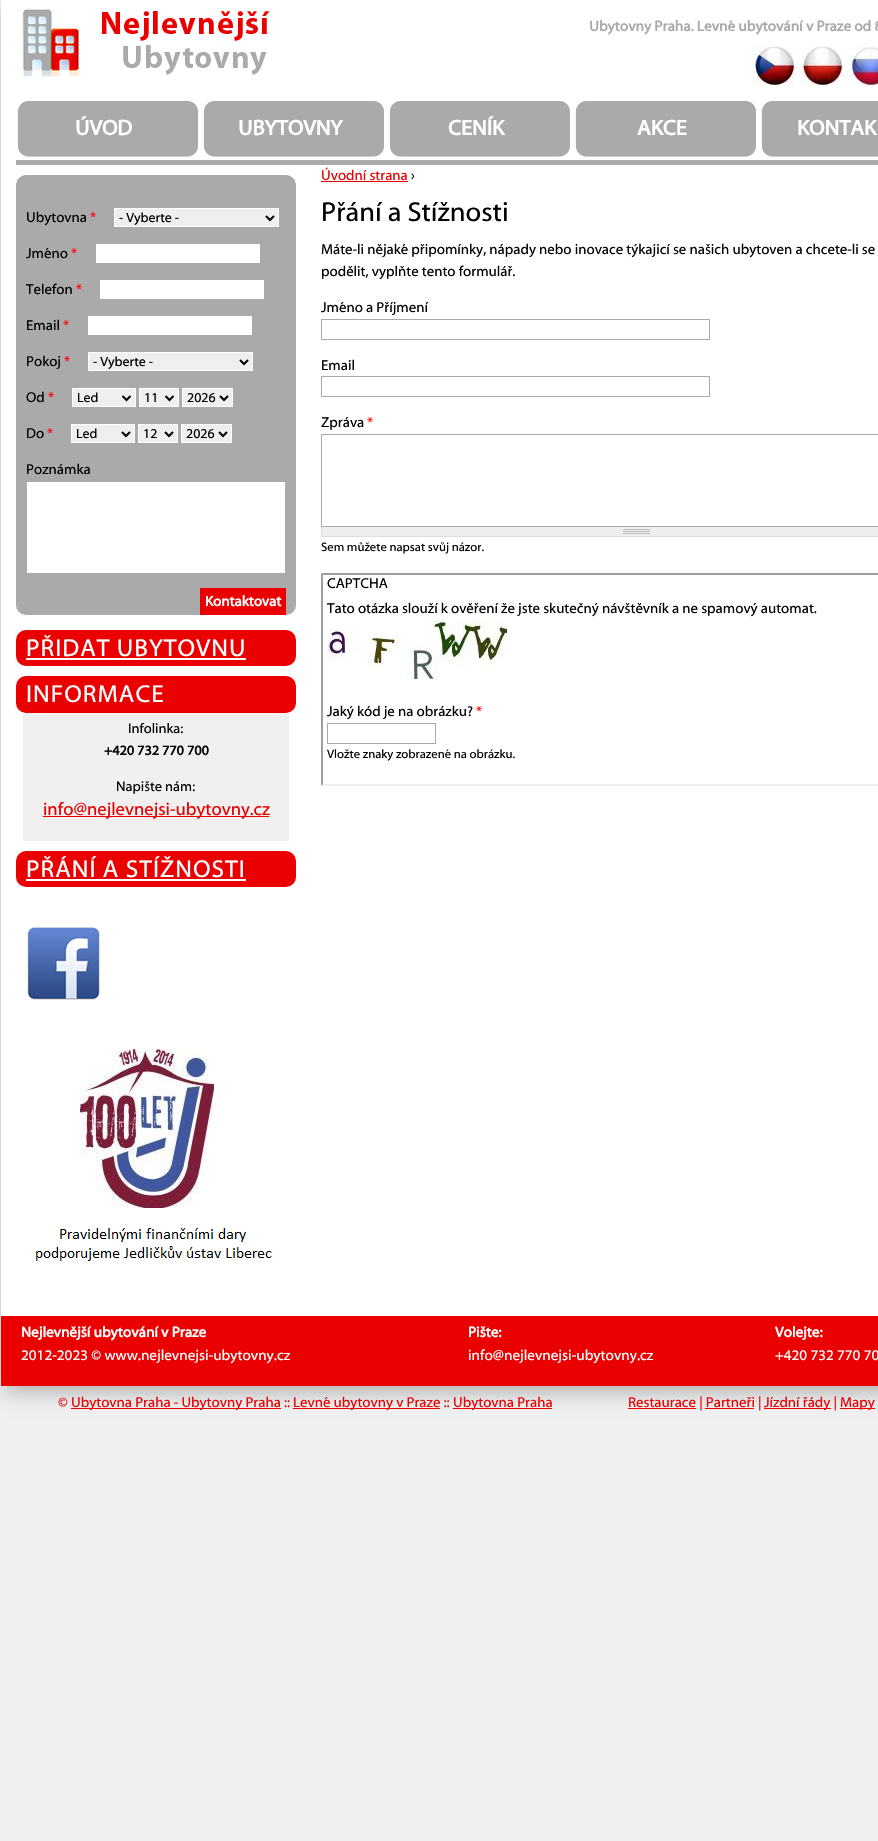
void draw(SkCanvas* canvas) {
  SkPaint paint;
  paint.setAntiAlias(true);
  auto face = [&](const char* family, int weight, float size, bool italic = false) {
    SkFontStyle style(weight, SkFontStyle::kNormal_Width,
      italic ? SkFontStyle::kItalic_Slant : SkFontStyle::kUpright_Slant);
    SkFont result(fontMgr->matchFamilyStyle(family, style), size);
    result.setSubpixel(true);
    return result;
  };
  auto writeSpaced = [&](const char* s, float x, float y, const SkFont& font, const SkPaint& ink, float letter, float word) {
    std::vector<SkGlyphID> glyphs(font.countText(s, strlen(s), SkTextEncoding::kUTF8));
    std::vector<float> xs(glyphs.size());
    font.textToGlyphs(s, strlen(s), SkTextEncoding::kUTF8, glyphs);
    font.getXPos(glyphs, xs, x);
    float extra = 0;
    for (size_t i = 0; i < glyphs.size(); i++) {
      xs[i] += extra;
      extra += letter + word * (glyphs[i] == font.unicharToGlyph(' '));
    }
    canvas->drawTextBlob(SkTextBlob::MakeFromPosHGlyphs(glyphs, xs, y, font), 0, 0, ink);
  };
  auto paste = [&](const char* path, float x, float y, float w, float h) {
    auto image = SkImages::DeferredFromEncodedData(SkData::MakeFromFileName(path));
    canvas->drawImageRect(image, SkRect::MakeXYWH(x, y, w, h), SkSamplingOptions());
  };
  auto shape = [&](const char* data, bool evenOdd = false) {
    SkPath result = *SkParsePath::FromSVGString(data);
    if (evenOdd) result.setFillType(SkPathFillType::kEvenOdd);
    return result;
  };
  canvas->clear(0xfff0f0f0);
  paint.setColor(0xffaaaaaa);
  paint.setMaskFilter(SkMaskFilter::MakeBlur(kNormal_SkBlurStyle, 10));
  canvas->drawRect(SkRect::MakeXYWH(5, 5, 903, 1386), paint);
  paint.setMaskFilter(nullptr);
  paint.setColor(0xffffffff);
  canvas->drawRect(SkRect::MakeXYWH(1, 0, 877, 1316), paint);
  paste("img/1.png", 22, 9, 248, 68);
  paste("img/2.png", 754, 45, 41, 41);
  paste("img/3.png", 802, 46, 41, 40);
  paste("img/4.png", 850, 45, 28, 41);
  paint.setColor(0xffaaaaaa);
  canvas->drawRect(SkRect::MakeXYWH(16, 160, 862, 5), paint);
  paste("img/5.png", 17, 101, 181, 56);
  paste("img/5.png", 203, 101, 181, 56);
  paste("img/5.png", 389, 101, 181, 56);
  paste("img/5.png", 575, 101, 181, 56);
  paste("img/6.png", 761, 101, 117, 56);
  canvas->drawRoundRect(SkRect::MakeXYWH(16, 175, 280, 440), 10, 10, paint);
  paint.setColor(0xffefefef);
  canvas->drawRect(SkRect::MakeXYWH(114.5f, 208.5f, 164, 18), paint);
  paint.setStroke(true);
  paint.setStrokeWidth(1);
  paint.setColor(0xffffffff);
  canvas->drawRect(SkRect::MakeXYWH(114.5f, 208.5f, 164, 18), paint);
  paint.setStrokeWidth(2);
  paint.setColor(0xff000000);
  canvas->drawPath(shape("M266 216L270 220L274 216"), paint);
  paint.setStroke(false);
  {
    const struct { float x, y, w, h; SkColor color; } items[] = {
      {96, 244, 164, 19, 0xffffffff},
      {100, 280, 164, 19, 0xffffffff},
      {88, 316, 164, 19, 0xffffffff},
    };
    for (auto [x, y, w, h, color] : items) {
      paint.setColor(color);
      canvas->drawRect(SkRect::MakeXYWH(x, y, w, h), paint);
    }
  }
  paint.setColor(0xffefefef);
  canvas->drawRect(SkRect::MakeXYWH(88.5f, 352.5f, 164, 18), paint);
  paint.setStroke(true);
  paint.setStrokeWidth(1);
  paint.setColor(0xffffffff);
  canvas->drawRect(SkRect::MakeXYWH(88.5f, 352.5f, 164, 18), paint);
  paint.setStrokeWidth(2);
  paint.setColor(0xff000000);
  canvas->drawPath(shape("M240 360L244 364L248 360"), paint);
  paint.setStroke(false);
  paint.setColor(0xffefefef);
  canvas->drawRect(SkRect::MakeXYWH(72.5f, 388.5f, 63, 18), paint);
  paint.setStroke(true);
  paint.setStrokeWidth(1);
  paint.setColor(0xffffffff);
  canvas->drawRect(SkRect::MakeXYWH(72.5f, 388.5f, 63, 18), paint);
  paint.setStrokeWidth(2);
  paint.setColor(0xff000000);
  canvas->drawPath(shape("M122.5 396L126.5 400L130.5 396"), paint);
  paint.setStroke(false);
  paint.setColor(0xffefefef);
  canvas->drawRect(SkRect::MakeXYWH(139.5f, 388.5f, 39, 18), paint);
  paint.setStroke(true);
  paint.setStrokeWidth(1);
  paint.setColor(0xffffffff);
  canvas->drawRect(SkRect::MakeXYWH(139.5f, 388.5f, 39, 18), paint);
  paint.setStrokeWidth(2);
  paint.setColor(0xff000000);
  canvas->drawPath(shape("M165.5 396L169.5 400L173.5 396"), paint);
  paint.setStroke(false);
  paint.setColor(0xffefefef);
  canvas->drawRect(SkRect::MakeXYWH(182.5f, 388.5f, 50, 18), paint);
  paint.setStroke(true);
  paint.setStrokeWidth(1);
  paint.setColor(0xffffffff);
  canvas->drawRect(SkRect::MakeXYWH(182.5f, 388.5f, 50, 18), paint);
  paint.setStrokeWidth(2);
  paint.setColor(0xff000000);
  canvas->drawPath(shape("M220 396L224 400L228 396"), paint);
  paint.setStroke(false);
  paint.setColor(0xffefefef);
  canvas->drawRect(SkRect::MakeXYWH(71.5f, 424.5f, 63, 18), paint);
  paint.setStroke(true);
  paint.setStrokeWidth(1);
  paint.setColor(0xffffffff);
  canvas->drawRect(SkRect::MakeXYWH(71.5f, 424.5f, 63, 18), paint);
  paint.setStrokeWidth(2);
  paint.setColor(0xff000000);
  canvas->drawPath(shape("M122 432L126 436L130 432"), paint);
  paint.setStroke(false);
  paint.setColor(0xffefefef);
  canvas->drawRect(SkRect::MakeXYWH(138.5f, 424.5f, 39, 18), paint);
  paint.setStroke(true);
  paint.setStrokeWidth(1);
  paint.setColor(0xffffffff);
  canvas->drawRect(SkRect::MakeXYWH(138.5f, 424.5f, 39, 18), paint);
  paint.setStrokeWidth(2);
  paint.setColor(0xff000000);
  canvas->drawPath(shape("M165 432L169 436L173 432"), paint);
  paint.setStroke(false);
  paint.setColor(0xffefefef);
  canvas->drawRect(SkRect::MakeXYWH(181.5f, 424.5f, 50, 18), paint);
  paint.setStroke(true);
  paint.setStrokeWidth(1);
  paint.setColor(0xffffffff);
  canvas->drawRect(SkRect::MakeXYWH(181.5f, 424.5f, 50, 18), paint);
  paint.setStrokeWidth(2);
  paint.setColor(0xff000000);
  canvas->drawPath(shape("M219 432L223 436L227 432"), paint);
  paint.setStroke(false);
  paint.setColor(0xffffffff);
  canvas->drawRect(SkRect::MakeXYWH(27, 482, 258, 91), paint);
  paint.setColor(0xffea0000);
  canvas->drawRect(SkRect::MakeXYWH(200, 588, 86, 27), paint);
  canvas->drawRoundRect(SkRect::MakeXYWH(16, 630, 280, 36), 10, 10, paint);
  paint.setColor(0xffffffff);
  canvas->drawRect(SkRect::MakeXYWH(26, 658, 220, 2), paint);
  paint.setColor(0xffea0000);
  canvas->drawRoundRect(SkRect::MakeXYWH(16, 676, 280, 37), 10, 10, paint);
  paint.setColor(0xfff0f0f0);
  canvas->drawRect(SkRect::MakeXYWH(23, 713, 266, 128), paint);
  paint.setColor(0xffea0000);
  canvas->drawRect(SkRect::MakeXYWH(43, 816, 226, 1), paint);
  canvas->drawRoundRect(SkRect::MakeXYWH(16, 851, 280, 36), 10, 10, paint);
  paint.setColor(0xffffffff);
  canvas->drawRect(SkRect::MakeXYWH(26, 879, 220, 2), paint);
  paste("img/7.png", 27, 927, 73, 73);
  paste("img/8.png", 35, 1049, 237, 212);
  paint.setColor(0xffea0000);
  canvas->drawRect(SkRect::MakeXYWH(321, 181, 87, 1), paint);
  paint.setStroke(true);
  paint.setStrokeWidth(1);
  paint.setColor(0xffaaaaaa);
  canvas->drawRect(SkRect::MakeXYWH(321.5f, 319.5f, 388, 20), paint);
  canvas->drawRect(SkRect::MakeXYWH(321.5f, 376.5f, 388, 20), paint);
  canvas->drawRect(SkRect::MakeXYWH(321.5f, 434.5f, 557, 92), paint);
  paint.setStroke(false);
  paint.setColor(0xffeeeeee);
  canvas->drawRect(SkRect::MakeXYWH(322, 527, 556, 9), paint);
  paste("img/9.png", 623, 529, 27, 5);
  paint.setColor(0xffdddddd);
  canvas->drawRect(SkRect::MakeXYWH(321, 536, 557, 1), paint);
  canvas->drawRect(SkRect::MakeXYWH(321, 527, 1, 10), paint);
  paint.setColor(0xff9f9f9f);
  canvas->drawPath(shape("M321 573H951L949 575H323Z"), paint);
  paint.setColor(0xffefefef);
  canvas->drawPath(shape("M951 786H321L323 784H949Z"), paint);
  paint.setColor(0xff9f9f9f);
  canvas->drawPath(shape("M321 786V573L323 575V784Z"), paint);
  paste("img/10.png", 327, 620, 180, 60);
  paint.setStroke(true);
  paint.setColor(0xffaaaaaa);
  canvas->drawRect(SkRect::MakeXYWH(327.5f, 723.5f, 108, 20), paint);
  paint.setStroke(false);
  {
    const struct { float x, y, w, h; SkColor color; } items[] = {
      {1, 1316, 877, 70, 0xffea0000},
      {71, 1408, 210, 1, 0xffea0000},
      {293, 1408, 147, 1, 0xffea0000},
      {453, 1408, 99, 1, 0xffea0000},
      {628, 1408, 68, 1, 0xffea0000},
      {764, 1408, 67, 1, 0xffea0000},
      {840, 1408, 35, 1, 0xffea0000},
      {705, 1408, 49, 1, 0xffea0000},
    };
    for (auto [x, y, w, h, color] : items) {
      paint.setColor(color);
      canvas->drawRect(SkRect::MakeXYWH(x, y, w, h), paint);
    }
  }
  auto f0 = face("Myriad", 700, 14.7f);
  paint.setColor(0xffaaaaaa);
  canvas->drawString("Ubytovny Praha. Levné ubytování v Praze od 8", 589, 31, f0, paint);
  auto f1 = face("Myriad", 700, 21.5f);
  paint.setColor(0xffffffff);
  {
    const struct { const char* s; float x, y; } items[] = {
      {"ÚVOD", 75, 135},
      {"UBYTOVNY", 238, 135},
      {"CENÍK", 448, 135},
      {"AKCE", 637, 135},
      {"KONTAK", 797, 135},
    };
    for (auto [s, x, y] : items) {
      canvas->drawString(s, x, y, f1, paint);
    }
  }
  auto f2 = face("Myriad", 400, 14.4f);
  paint.setColor(0xff000000);
  canvas->drawString("Ubytovna", 26, 222, f2, paint);
  paint.setColor(0xffff0000);
  canvas->drawString("*", 90, 222, f2, paint);
  auto f3 = face("Myriad", 400, 13.5f);
  paint.setColor(0xff000000);
  canvas->drawString("- Vyberte -", 119, 222, f3, paint);
  canvas->drawString("Jméno", 26, 258, f2, paint);
  paint.setColor(0xffff0000);
  canvas->drawString("*", 71, 258, f2, paint);
  paint.setColor(0xff000000);
  canvas->drawString("Telefon", 26, 294, f2, paint);
  paint.setColor(0xffff0000);
  canvas->drawString("*", 76, 294, f2, paint);
  paint.setColor(0xff000000);
  canvas->drawString("Email", 26, 330, f2, paint);
  paint.setColor(0xffff0000);
  canvas->drawString("*", 63, 330, f2, paint);
  paint.setColor(0xff000000);
  canvas->drawString("Pokoj", 26, 366, f2, paint);
  paint.setColor(0xffff0000);
  canvas->drawString("*", 64, 366, f2, paint);
  paint.setColor(0xff000000);
  canvas->drawString("- Vyberte -", 93, 366, f3, paint);
  canvas->drawString("Od", 26, 402, f2, paint);
  paint.setColor(0xffff0000);
  canvas->drawString("*", 48, 402, f2, paint);
  paint.setColor(0xff000000);
  {
    const struct { const char* s; float x, y; } items[] = {
      {"Led", 77, 402},
      {"11", 144, 402},
      {"2026", 187, 402},
    };
    for (auto [s, x, y] : items) {
      canvas->drawString(s, x, y, f3, paint);
    }
  }
  canvas->drawString("Do", 26, 438, f2, paint);
  paint.setColor(0xffff0000);
  canvas->drawString("*", 47, 438, f2, paint);
  paint.setColor(0xff000000);
  {
    const struct { const char* s; float x, y; } items[] = {
      {"Led", 76, 438},
      {"12", 143, 438},
      {"2026", 186, 438},
    };
    for (auto [s, x, y] : items) {
      canvas->drawString(s, x, y, f3, paint);
    }
  }
  canvas->drawString("Poznámka", 26, 474, f2, paint);
  auto f4 = face("Myriad", 700, 14.4f);
  paint.setColor(0xffffffff);
  canvas->drawString("Kontaktovat", 205, 606, f4, paint);
  auto f5 = face("Myriad", 400, 24.5f);
  writeSpaced("PŘIDAT UBYTOVNU", 26, 656, f5, paint, 1, 0);
  writeSpaced("INFORMACE", 26, 702, f5, paint, 1, 0);
  auto f6 = face("Myriad", 400, 14);
  paint.setColor(0xff000000);
  canvas->drawString("Infolinka:", 128, 733, f6, paint);
  auto f7 = face("Myriad", 700, 13.75f);
  canvas->drawString("+420 732 770 700", 104, 755, f7, paint);
  canvas->drawString("Napište nám:", 116, 791, f6, paint);
  auto f8 = face("Myriad", 400, 18);
  paint.setColor(0xffea0000);
  canvas->drawString("info@nejlevnejsi-ubytovny.cz", 43, 815, f8, paint);
  paint.setColor(0xffffffff);
  writeSpaced("PŘÁNÍ A STÍŽNOSTI", 26, 877, f5, paint, 1, 0);
  paint.setColor(0xffea0000);
  canvas->drawString("Úvodní strana", 321, 180, f2, paint);
  paint.setColor(0xff000000);
  canvas->drawString("›", 411, 180, f2, paint);
  auto f9 = face("Myriad", 400, 27.5f);
  canvas->drawString("Přání a Stížnosti", 321, 221, f9, paint);
  {
    const struct { const char* s; float x, y; } items[] = {
      {"Máte-li nějaké připomínky, nápady nebo inovace týkajicí se našich ubytoven a chcete-li se", 321, 254},
      {"podělit, vyplňte tento formulář.", 321, 276},
      {"Jméno a Příjmení", 321, 312},
      {"Email", 321, 370},
      {"Zpráva", 321, 427},
    };
    for (auto [s, x, y] : items) {
      canvas->drawString(s, x, y, f2, paint);
    }
  }
  paint.setColor(0xffff0000);
  canvas->drawString("*", 367, 427, f2, paint);
  auto f10 = face("Myriad", 400, 12.25f);
  paint.setColor(0xff000000);
  canvas->drawString("Sem můžete napsat svůj názor.", 321, 551, f10, paint);
  {
    const struct { const char* s; float x, y; } items[] = {
      {"CAPTCHA", 327, 588},
      {"Tato otázka slouží k ověření že jste skutečný návštěvník a ne spamový automat.", 327, 613},
      {"Jaký kód je na obrázku?", 327, 716},
    };
    for (auto [s, x, y] : items) {
      canvas->drawString(s, x, y, f2, paint);
    }
  }
  paint.setColor(0xffff0000);
  canvas->drawString("*", 476, 716, f2, paint);
  paint.setColor(0xff000000);
  canvas->drawString("Vložte znaky zobrazené na obrázku.", 327, 758, f10, paint);
  paint.setColor(0xffffffff);
  canvas->drawString("Nejlevnější ubytování v Praze", 21, 1337, f0, paint);
  auto f11 = face("Myriad", 400, 14.7f);
  canvas->drawString("2012-2023 © www.nejlevnejsi-ubytovny.cz", 21, 1360, f11, paint);
  canvas->drawString("Pište:", 468, 1337, f0, paint);
  canvas->drawString("info@nejlevnejsi-ubytovny.cz", 468, 1360, f11, paint);
  canvas->drawString("Volejte:", 775, 1337, f0, paint);
  canvas->drawString("+420 732 770 70", 775, 1360, f11, paint);
  paint.setColor(0xffea0000);
  {
    const struct { const char* s; float x, y; } items[] = {
      {"©", 58, 1407},
      {"Ubytovna Praha - Ubytovny Praha ::", 71, 1407},
      {"Levné ubytovny v Praze ::", 293, 1407},
      {"Ubytovna Praha", 453, 1407},
      {"Restaurace | Partneři |", 628, 1407},
      {"Jízdní řády |", 764, 1407},
      {"Mapy", 840, 1407},
    };
    for (auto [s, x, y] : items) {
      canvas->drawString(s, x, y, f2, paint);
    }
  }
}
